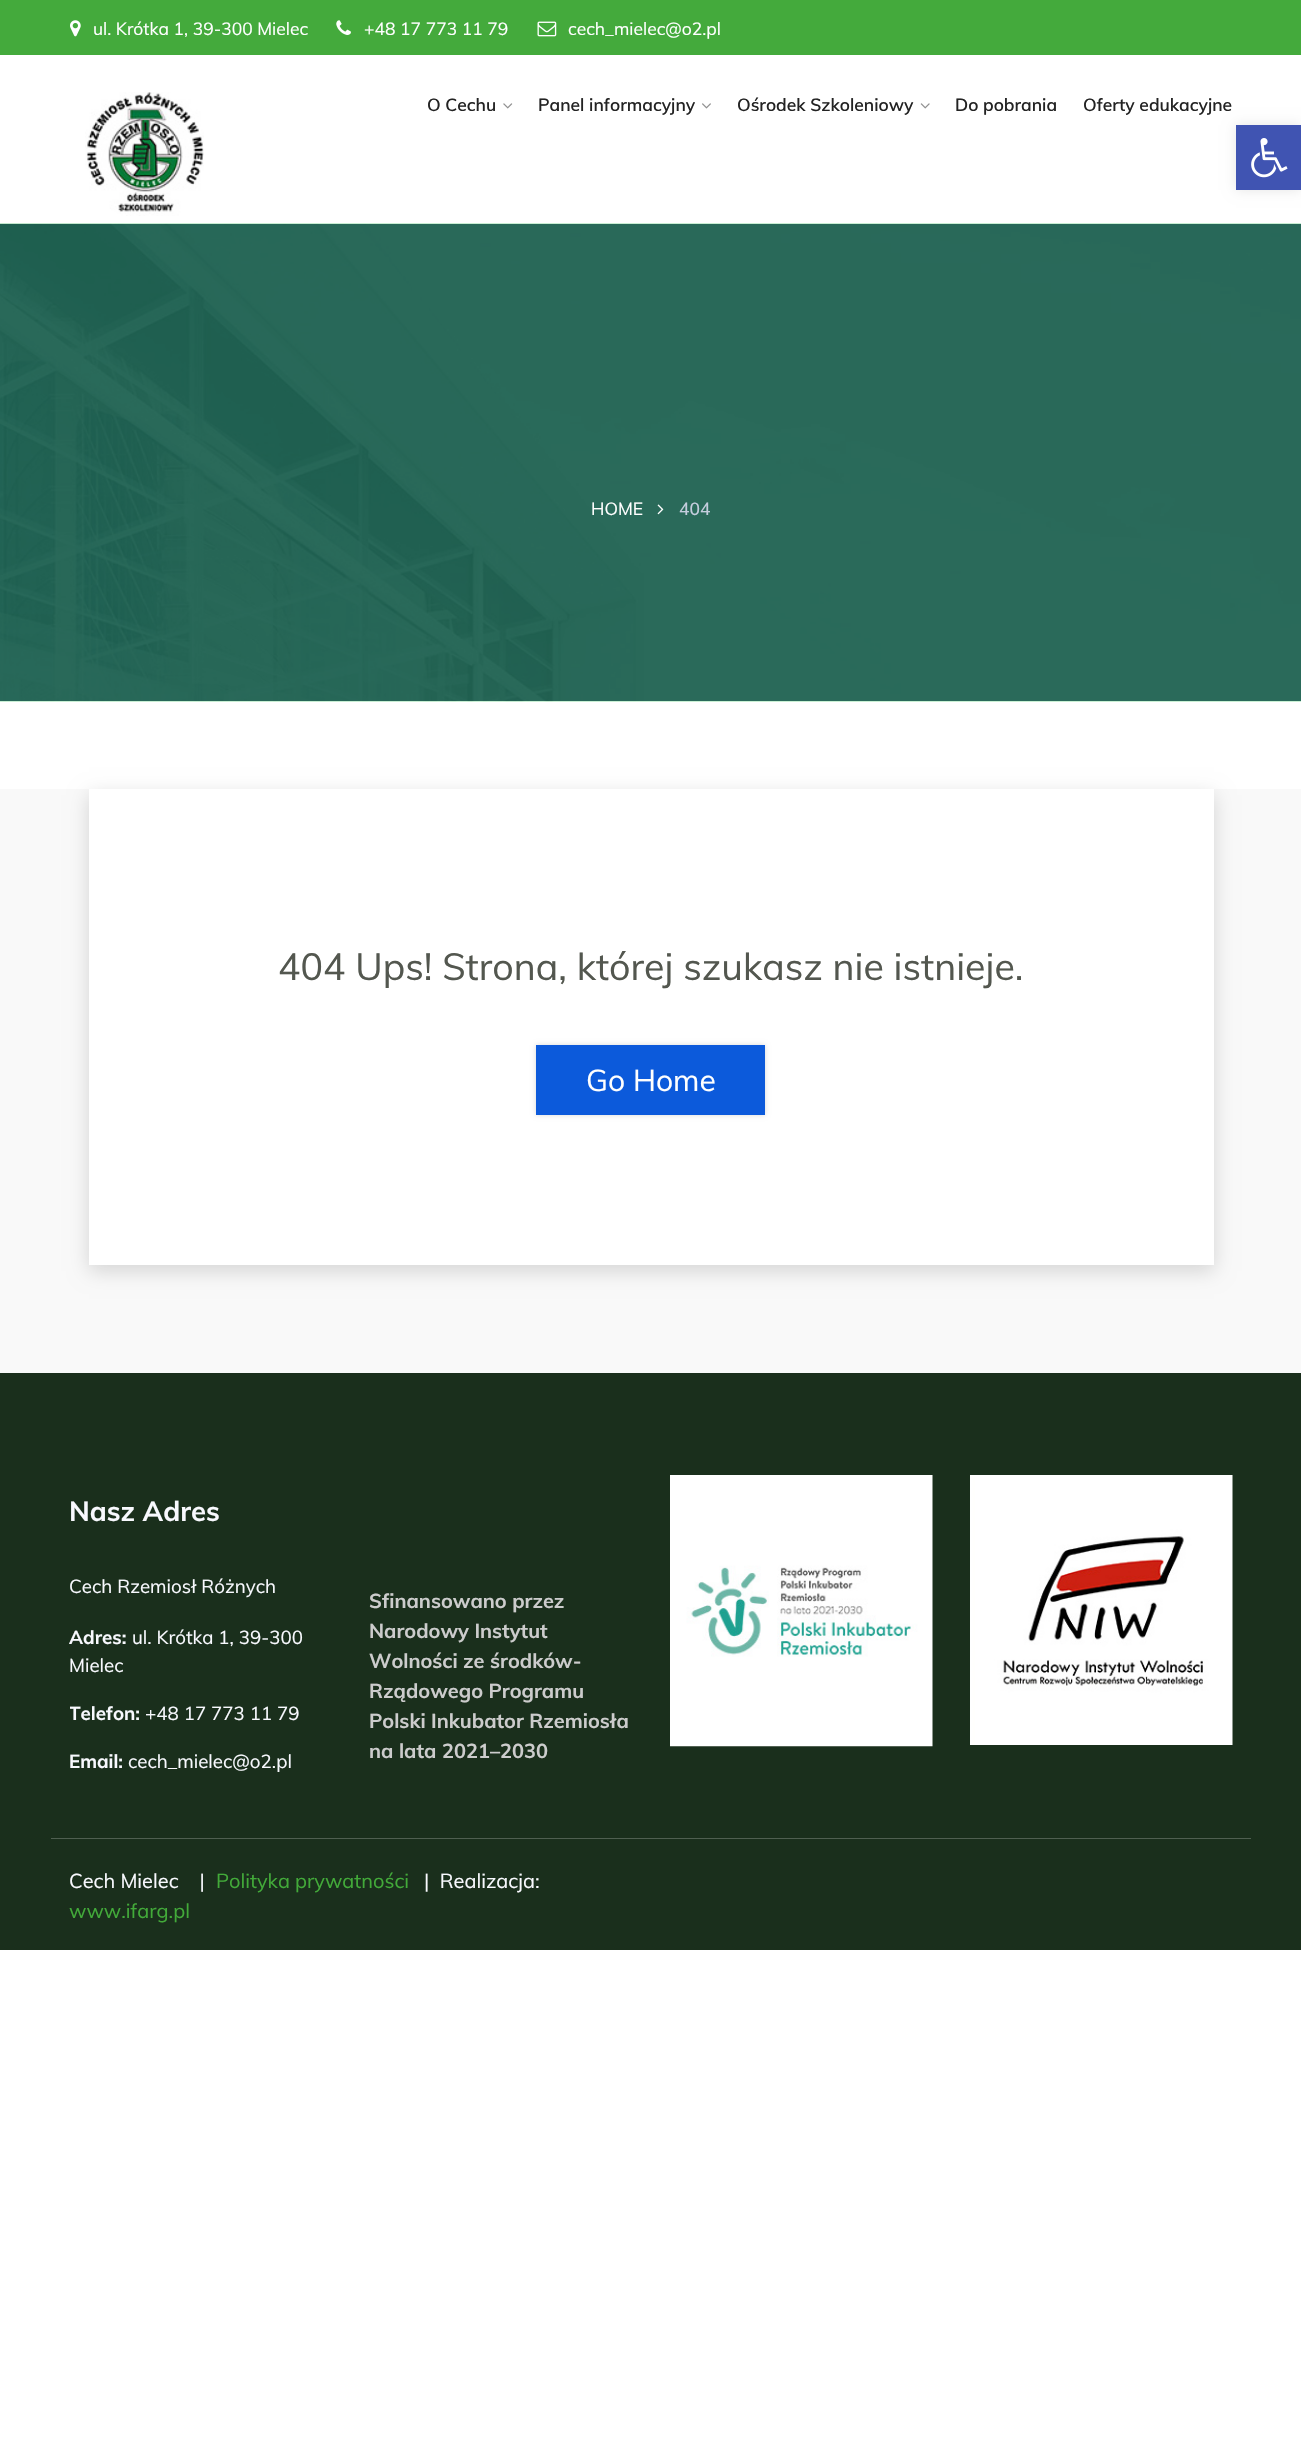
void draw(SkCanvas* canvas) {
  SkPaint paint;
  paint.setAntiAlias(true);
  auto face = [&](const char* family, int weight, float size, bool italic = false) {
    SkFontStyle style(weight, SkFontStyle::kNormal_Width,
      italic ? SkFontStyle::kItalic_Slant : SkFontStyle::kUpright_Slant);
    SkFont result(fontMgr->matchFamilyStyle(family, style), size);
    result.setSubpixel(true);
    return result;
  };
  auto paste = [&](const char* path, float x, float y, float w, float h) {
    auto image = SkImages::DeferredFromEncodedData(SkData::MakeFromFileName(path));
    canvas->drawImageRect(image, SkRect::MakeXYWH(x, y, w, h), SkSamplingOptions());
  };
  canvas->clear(0xffffffff);
  paint.setColor(0xff44aa3c);
  canvas->drawRect(SkRect::MakeXYWH(0, 0, 1301, 55), paint);
  paste("img/1.png", 70, 20, 11, 17);
  paste("img/2.png", 336, 20, 15, 15);
  paste("img/3.png", 537, 21, 20, 16);
  paste("img/4.png", 85, 92, 119, 124);
  paste("img/5.png", 503, 103, 10, 6);
  paste("img/6.png", 702, 103, 9, 6);
  paste("img/7.png", 920, 103, 10, 6);
  paste("img/8.png", 0, 223, 1301, 479);
  paste("img/9.png", 657, 504, 7, 11);
  paint.setColor(0xfff9f9f9);
  canvas->drawRect(SkRect::MakeXYWH(0, 789, 1301, 584), paint);
  paint.setColor(0x26000000);
  paint.setMaskFilter(SkMaskFilter::MakeBlur(kNormal_SkBlurStyle, 9.5f));
  canvas->drawRect(SkRect::MakeXYWH(89, 795, 1125, 476), paint);
  paint.setMaskFilter(nullptr);
  paint.setColor(0xffffffff);
  canvas->drawRect(SkRect::MakeXYWH(89, 789, 1125, 476), paint);
  paint.setColor(0x26000000);
  paint.setMaskFilter(SkMaskFilter::MakeBlur(kNormal_SkBlurStyle, 2.5f));
  canvas->drawRect(SkRect::MakeXYWH(536, 1045, 229, 70), paint);
  paint.setMaskFilter(nullptr);
  paint.setColor(0xff0c5adb);
  canvas->drawRect(SkRect::MakeXYWH(536, 1045, 229, 70), paint);
  paint.setColor(0xff1a2f1c);
  canvas->drawRect(SkRect::MakeXYWH(0, 1373, 1301, 577), paint);
  paste("img/10.png", 670, 1475, 263, 272);
  paste("img/11.png", 970, 1475, 263, 270);
  paint.setColor(0xff4f5f50);
  canvas->drawRect(SkRect::MakeXYWH(51, 1838, 1200, 1), paint);
  paint.setColor(0x1a000000);
  paint.setMaskFilter(SkMaskFilter::MakeBlur(kNormal_SkBlurStyle, 6));
  canvas->drawRect(SkRect::MakeXYWH(1236, 125, 65, 65), paint);
  paint.setMaskFilter(nullptr);
  paint.setColor(0xff4054b2);
  canvas->drawRect(SkRect::MakeXYWH(1236, 125, 65, 65), paint);
  paste("img/12.png", 1251, 138, 37, 40);
  auto f0 = face("Muli", 400, 17.5f);
  paint.setColor(0xffffffff);
  {
    const struct { const char* s; float x, y; } items[] = {
      {"ul. Krótka 1, 39-300 Mielec", 93, 35},
      {"+48 17 773 11 79", 364, 35},
      {"cech_mielec@o2.pl", 568, 35},
    };
    for (auto [s, x, y] : items) {
      canvas->drawString(s, x, y, f0, paint);
    }
  }
  auto f1 = face("Muli", 600, 17.5f);
  paint.setColor(0xff232323);
  {
    const struct { const char* s; float x, y; } items[] = {
      {"O Cechu", 427, 111},
      {"Panel informacyjny", 538, 111},
      {"Ośrodek Szkoleniowy", 737, 111},
      {"Do pobrania", 955, 111},
      {"Oferty edukacyjne", 1083, 111},
    };
    for (auto [s, x, y] : items) {
      canvas->drawString(s, x, y, f1, paint);
    }
  }
  paint.setColor(0xffffffff);
  canvas->drawString("HOME", 591, 515, f0, paint);
  auto f2 = face("Muli", 500, 17.5f);
  paint.setColor(0xffc4cddd);
  canvas->drawString("404", 679, 515, f2, paint);
  auto f3 = face("Muli", 400, 37.5f);
  paint.setColor(0xff53574f);
  canvas->drawString("404 Ups! Strona, której szukasz nie istnieje.", 278, 980, f3, paint);
  auto f4 = face("Muli", 400, 30);
  paint.setColor(0xffffffff);
  canvas->drawString("Go Home", 586, 1091, f4, paint);
  auto f5 = face("Muli", 700, 27.5f);
  paint.setColor(0xfff8f9fe);
  canvas->drawString("Nasz Adres", 69, 1521, f5, paint);
  auto f6 = face("Muli", 400, 18.75f);
  canvas->drawString("Cech Rzemiosł Różnych", 69, 1593, f6, paint);
  auto f7 = face("Muli", 700, 18.75f);
  canvas->drawString("Adres:", 69, 1644, f7, paint);
  canvas->drawString("ul. Krótka 1, 39-300", 132, 1644, f6, paint);
  canvas->drawString("Mielec", 69, 1672, f6, paint);
  canvas->save();
  canvas->clipRect(SkRect::MakeXYWH(70, 1700, 263, 49));
  canvas->drawString("Telefon:", 69, 1720, f7, paint);
  canvas->restore();
  canvas->drawString("+48 17 773 11 79", 145, 1720, f6, paint);
  canvas->drawString("Email:", 69, 1768, f7, paint);
  canvas->drawString("cech_mielec@o2.pl", 128, 1768, f6, paint);
  auto f8 = face("Muli", 700, 20);
  paint.setColor(0xffcccccc);
  {
    const struct { const char* s; float x, y; } items[] = {
      {"Sfinansowano przez", 369, 1608},
      {"Narodowy Instytut", 369, 1638},
      {"Wolności ze środków-", 369, 1668},
      {"Rządowego Programu", 369, 1698},
      {"Polski Inkubator Rzemiosła", 369, 1728},
      {"na lata 2021–2030", 369, 1758},
    };
    for (auto [s, x, y] : items) {
      canvas->drawString(s, x, y, f8, paint);
    }
  }
  auto f9 = face("Muli", 400, 20);
  paint.setColor(0xfff8f9fe);
  canvas->drawString("Cech Mielec    |", 69, 1888, f9, paint);
  paint.setColor(0xff42aa39);
  canvas->drawString("Polityka prywatności", 216, 1888, f9, paint);
  paint.setColor(0xfff8f9fe);
  canvas->drawString("|  Realizacja:", 424, 1888, f9, paint);
  paint.setColor(0xff42aa39);
  canvas->drawString("www.ifarg.pl", 69, 1918, f9, paint);
}
